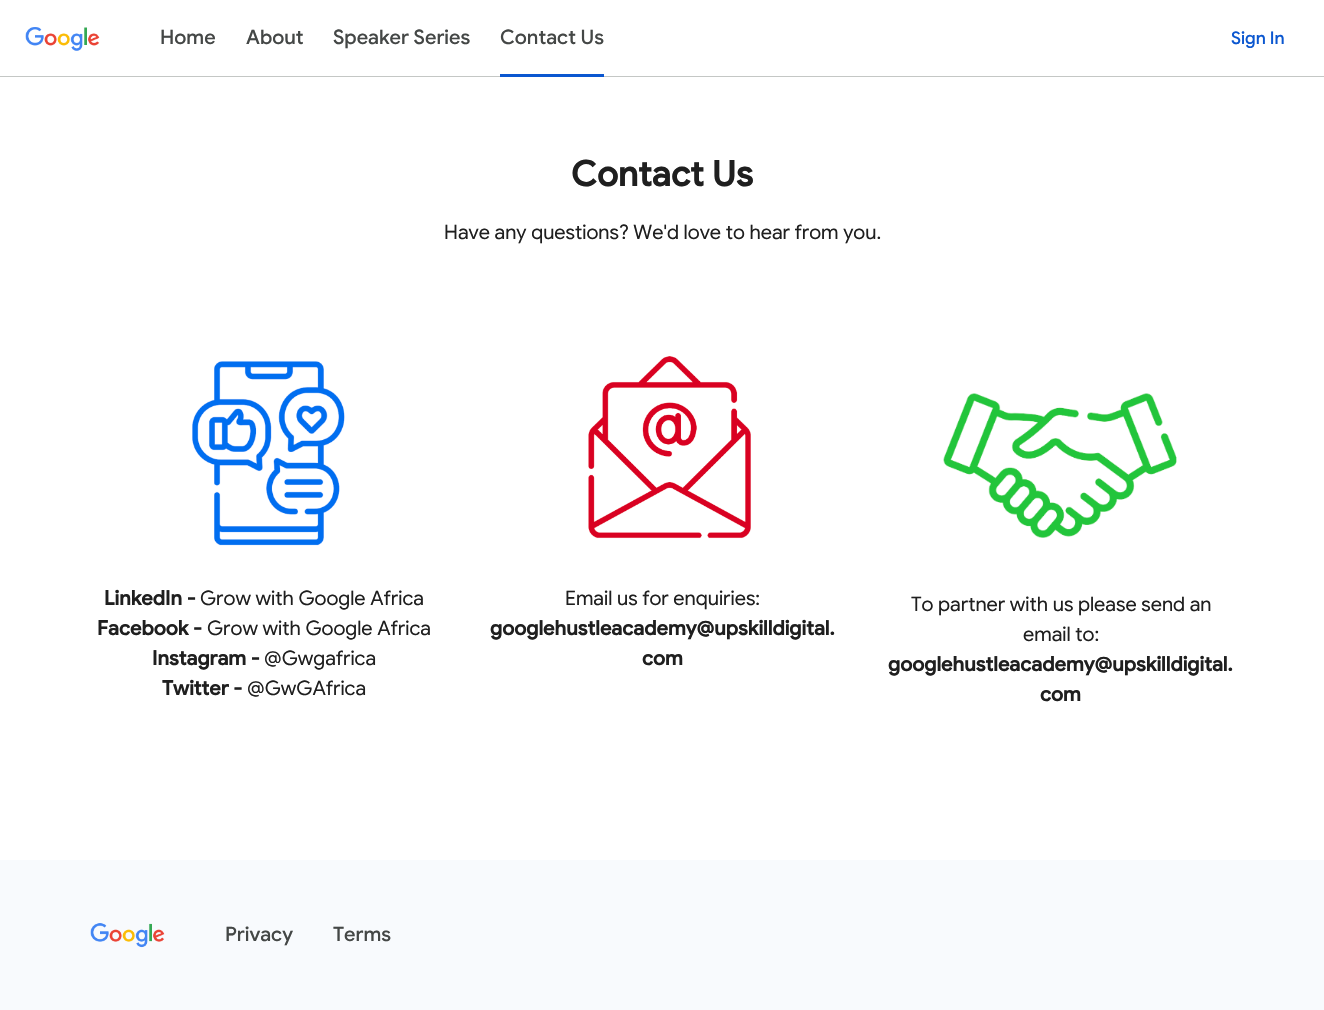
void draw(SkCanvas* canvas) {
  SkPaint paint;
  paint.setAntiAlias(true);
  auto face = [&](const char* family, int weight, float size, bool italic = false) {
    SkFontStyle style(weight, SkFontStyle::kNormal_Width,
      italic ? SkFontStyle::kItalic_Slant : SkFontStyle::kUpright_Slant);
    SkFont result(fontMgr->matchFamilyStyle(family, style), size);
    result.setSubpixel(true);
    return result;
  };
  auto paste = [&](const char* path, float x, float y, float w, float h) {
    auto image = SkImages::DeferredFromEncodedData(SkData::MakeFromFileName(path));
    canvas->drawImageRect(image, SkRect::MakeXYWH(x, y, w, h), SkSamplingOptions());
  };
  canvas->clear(0xffffffff);
  paint.setColor(0xffc4c7c5);
  canvas->drawRect(SkRect::MakeXYWH(0, 76, 1324, 1), paint);
  paste("img/1.png", 25, 27, 75, 24);
  paint.setColor(0xff0b57d0);
  canvas->drawRect(SkRect::MakeXYWH(500, 74, 104, 3), paint);
  paste("img/2.png", 192, 361, 153, 185);
  paste("img/3.png", 588, 356, 163, 183);
  paste("img/4.png", 943, 393, 234, 145);
  paint.setColor(0xfff8fafd);
  canvas->drawRect(SkRect::MakeXYWH(0, 860, 1324, 150), paint);
  paste("img/5.png", 90, 923, 75, 25);
  auto f0 = face("Google Sans", 500, 20);
  paint.setColor(0xff444746);
  {
    const struct { const char* s; float x, y; } items[] = {
      {"Home", 160, 44},
      {"About", 246, 44},
      {"Speaker Series", 333, 44},
      {"Contact Us", 500, 44},
    };
    for (auto [s, x, y] : items) {
      canvas->drawString(s, x, y, f0, paint);
    }
  }
  auto f1 = face("Google Sans", 500, 17.5f);
  paint.setColor(0xff0b57d0);
  canvas->drawString("Sign In", 1231, 44, f1, paint);
  auto f2 = face("Google Sans", 700, 35);
  paint.setColor(0xff1f1f1f);
  canvas->drawString("Contact Us", 571, 186, f2, paint);
  auto f3 = face("Google Sans", 400, 20);
  canvas->drawString("Have any questions? We'd love to hear from you.", 444, 239, f3, paint);
  auto f4 = face("Google Sans", 700, 20);
  canvas->drawString("LinkedIn -", 104, 605, f4, paint);
  canvas->drawString("Grow with Google Africa", 200, 605, f3, paint);
  canvas->drawString("Facebook -", 97, 635, f4, paint);
  canvas->drawString("Grow with Google Africa", 207, 635, f3, paint);
  canvas->drawString("Instagram -", 152, 665, f4, paint);
  canvas->drawString("@Gwgafrica", 264, 665, f3, paint);
  canvas->drawString("Twitter -", 162, 695, f4, paint);
  canvas->drawString("@GwGAfrica", 247, 695, f3, paint);
  canvas->drawString("Email us for enquiries:", 565, 605, f3, paint);
  canvas->drawString("googlehustleacademy@upskilldigital.", 490, 635, f4, paint);
  canvas->drawString("com", 642, 665, f4, paint);
  canvas->drawString("To partner with us please send an", 911, 611, f3, paint);
  canvas->drawString("email to:", 1023, 641, f3, paint);
  canvas->drawString("googlehustleacademy@upskilldigital.", 888, 671, f4, paint);
  canvas->drawString("com", 1040, 701, f4, paint);
  paint.setColor(0xff444746);
  canvas->drawString("Privacy", 225, 941, f0, paint);
  canvas->drawString("Terms", 333, 941, f0, paint);
}
